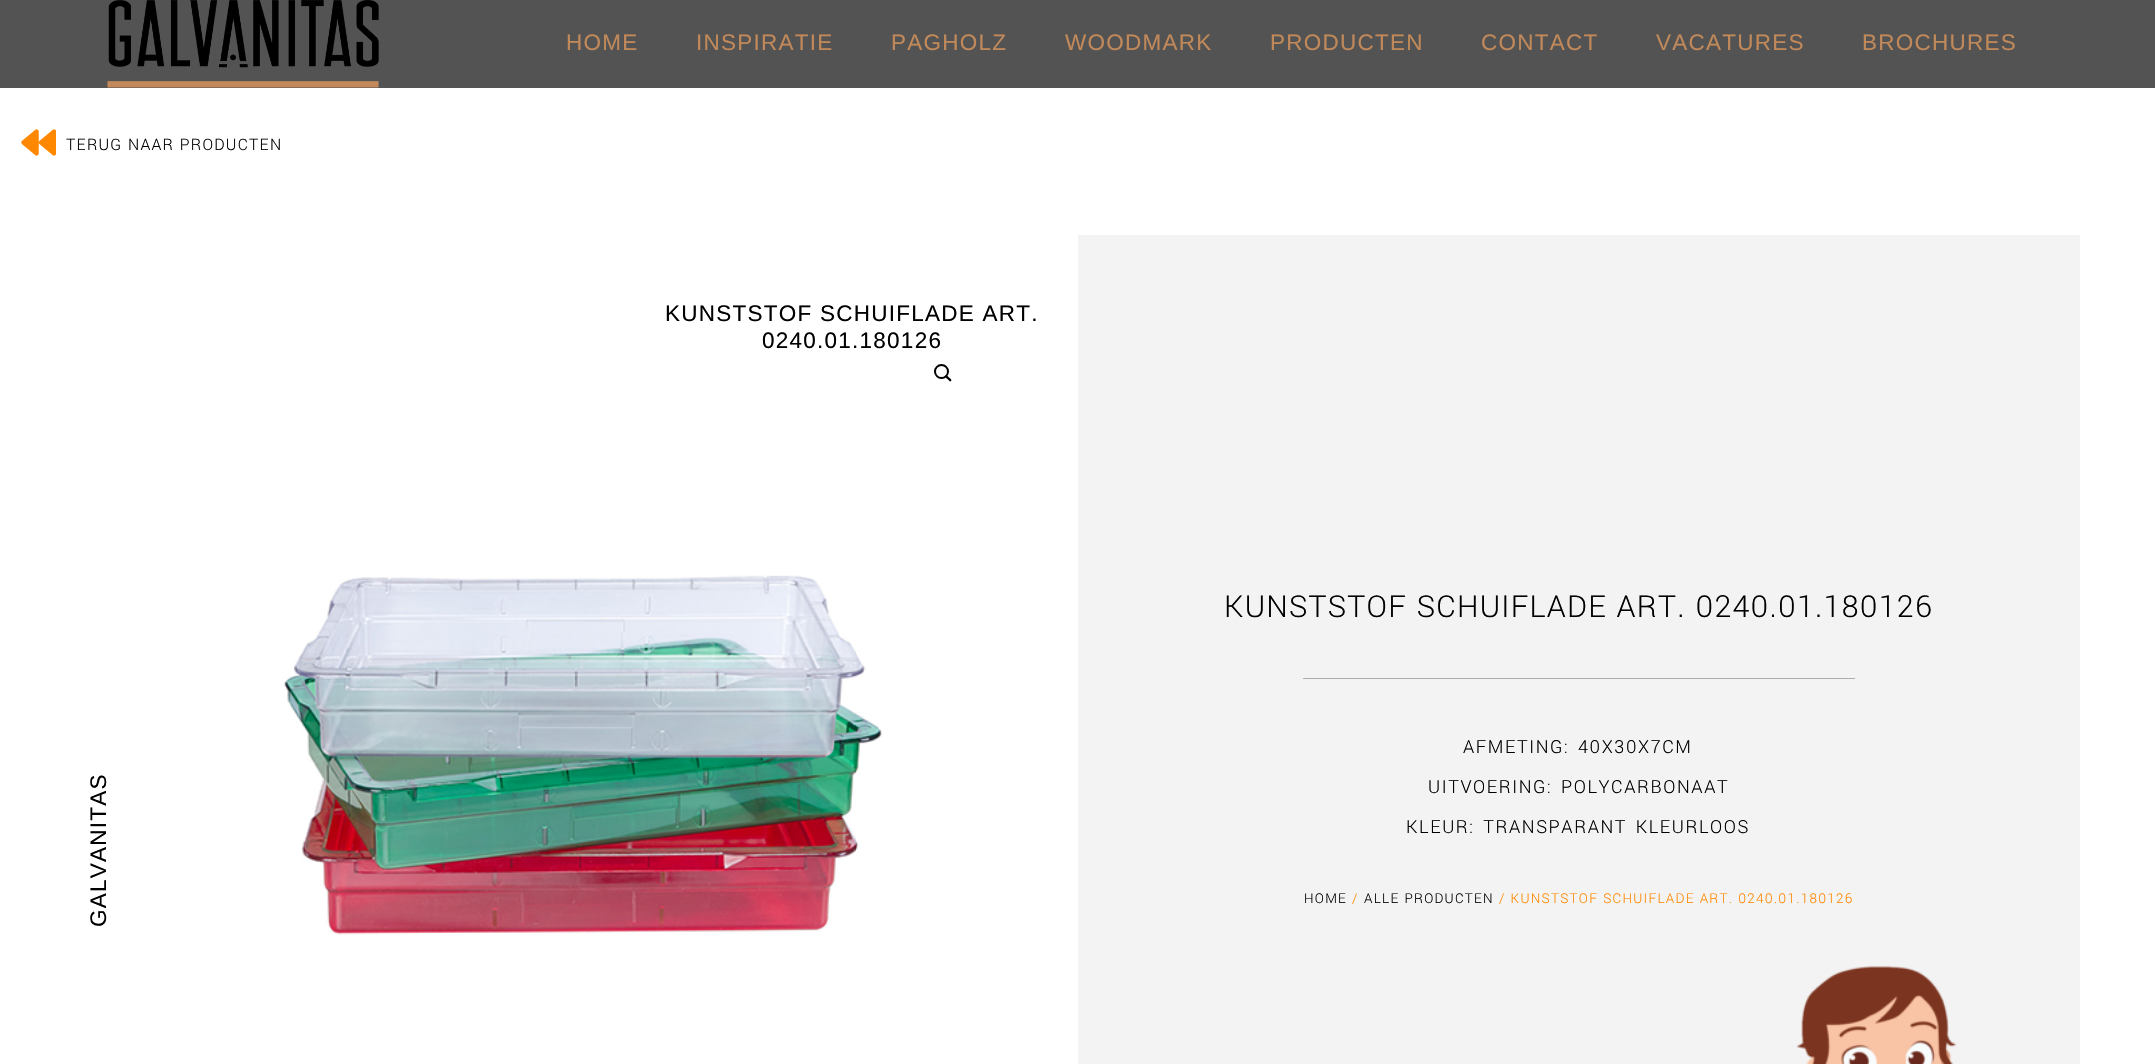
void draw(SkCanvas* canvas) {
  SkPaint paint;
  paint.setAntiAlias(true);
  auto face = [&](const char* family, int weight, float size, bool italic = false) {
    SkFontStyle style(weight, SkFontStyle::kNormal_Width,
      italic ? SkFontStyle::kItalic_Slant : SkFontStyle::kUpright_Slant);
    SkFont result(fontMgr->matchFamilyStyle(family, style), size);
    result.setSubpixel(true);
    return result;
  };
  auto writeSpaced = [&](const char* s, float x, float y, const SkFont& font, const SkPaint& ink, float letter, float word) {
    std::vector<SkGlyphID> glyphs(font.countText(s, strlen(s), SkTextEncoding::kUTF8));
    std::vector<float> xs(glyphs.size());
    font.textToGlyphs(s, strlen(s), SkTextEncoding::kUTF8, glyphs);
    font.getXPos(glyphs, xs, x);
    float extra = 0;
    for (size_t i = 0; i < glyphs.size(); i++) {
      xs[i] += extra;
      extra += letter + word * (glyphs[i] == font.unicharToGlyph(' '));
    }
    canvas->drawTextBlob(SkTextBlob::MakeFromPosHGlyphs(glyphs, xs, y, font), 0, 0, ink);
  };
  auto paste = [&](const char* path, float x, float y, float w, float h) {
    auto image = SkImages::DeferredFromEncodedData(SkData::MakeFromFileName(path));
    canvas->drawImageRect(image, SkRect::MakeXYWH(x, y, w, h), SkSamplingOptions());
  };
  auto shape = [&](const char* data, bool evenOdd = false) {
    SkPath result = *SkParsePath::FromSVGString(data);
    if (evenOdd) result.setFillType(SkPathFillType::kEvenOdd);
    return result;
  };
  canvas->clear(0xffffffff);
  paint.setColor(0xff535353);
  canvas->drawRect(SkRect::MakeXYWH(0, 0, 2155, 88), paint);
  paste("img/1.png", 107, 0, 272, 88);
  paste("img/2.png", 21, 129, 35, 27);
  paint.setStroke(true);
  paint.setStrokeWidth(2);
  paint.setColor(0xff000000);
  canvas->drawCircle(941.5f, 371.5f, 6.5f, paint);
  paint.setStroke(false);
  canvas->drawPath(shape("M945.5 375.5C946.5 374.5 948.5 377 949 377.5C949.5 378 952.5 380 951 381C950 382.5 948 379.5 947.5 379C947 378.5 944 376.5 945.5 375.5Z"), paint);
  paste("img/3.png", 284, 575, 598, 360);
  paint.setColor(0xfff3f3f3);
  canvas->drawRect(SkRect::MakeXYWH(1078, 235, 1002, 829), paint);
  paste("img/4.png", 1796, 966, 161, 98);
  paint.setColor(0xffadadad);
  canvas->drawRect(SkRect::MakeXYWH(1303, 678, 552, 1), paint);
  auto f0 = face("Liberation Sans", 400, 22.5f);
  paint.setColor(0xffc1895a);
  {
    const struct { const char* s; float x, y; } items[] = {
      {"HOME", 566, 50},
      {"INSPIRATIE", 696, 50},
      {"PAGHOLZ", 891, 50},
      {"WOODMARK", 1065, 50},
      {"PRODUCTEN", 1270, 50},
      {"CONTACT", 1481, 50},
      {"VACATURES", 1656, 50},
      {"BROCHURES", 1862, 50},
    };
    for (auto [s, x, y] : items) {
      writeSpaced(s, x, y, f0, paint, 1.25f, 0);
    }
  }
  auto f1 = face("Yantramanav", 300, 17.5f);
  paint.setColor(0xff000000);
  writeSpaced("TERUG NAAR PRODUCTEN", 66, 150, f1, paint, 1.25f, 0);
  writeSpaced("KUNSTSTOF SCHUIFLADE ART.", 665, 321, f0, paint, 1.25f, 0);
  writeSpaced("0240.01.180126", 762, 348, f0, paint, 1.25f, 0);
  canvas->save();
  canvas->rotate(-90, 106, 927);
  writeSpaced("GALVANITAS", 106, 927, f0, paint, 1.25f, 0);
  canvas->restore();
  auto f2 = face("Yantramanav", 300, 33.75f);
  writeSpaced("KUNSTSTOF SCHUIFLADE ART. 0240.01.180126", 1224, 617, f2, paint, 1.25f, 0);
  auto f3 = face("Yantramanav", 300, 20);
  {
    const struct { const char* s; float x, y; } items[] = {
      {"AFMETING: 40X30X7CM", 1463, 753},
      {"UITVOERING: POLYCARBONAAT", 1428, 793},
      {"KLEUR: TRANSPARANT KLEURLOOS", 1406, 833},
    };
    for (auto [s, x, y] : items) {
      writeSpaced(s, x, y, f3, paint, 1.6f, 2);
    }
  }
  auto f4 = face("Yantramanav", 300, 15);
  writeSpaced("HOME", 1304, 903, f4, paint, 1.25f, 0);
  paint.setColor(0xffff8800);
  writeSpaced("/", 1352, 903, f4, paint, 1.25f, 0);
  paint.setColor(0xff000000);
  writeSpaced("ALLE PRODUCTEN", 1364, 903, f4, paint, 1.25f, 0);
  paint.setColor(0xffff8800);
  writeSpaced("/ KUNSTSTOF SCHUIFLADE ART. 0240.01.180126", 1499, 903, f4, paint, 1.25f, 0);
}
